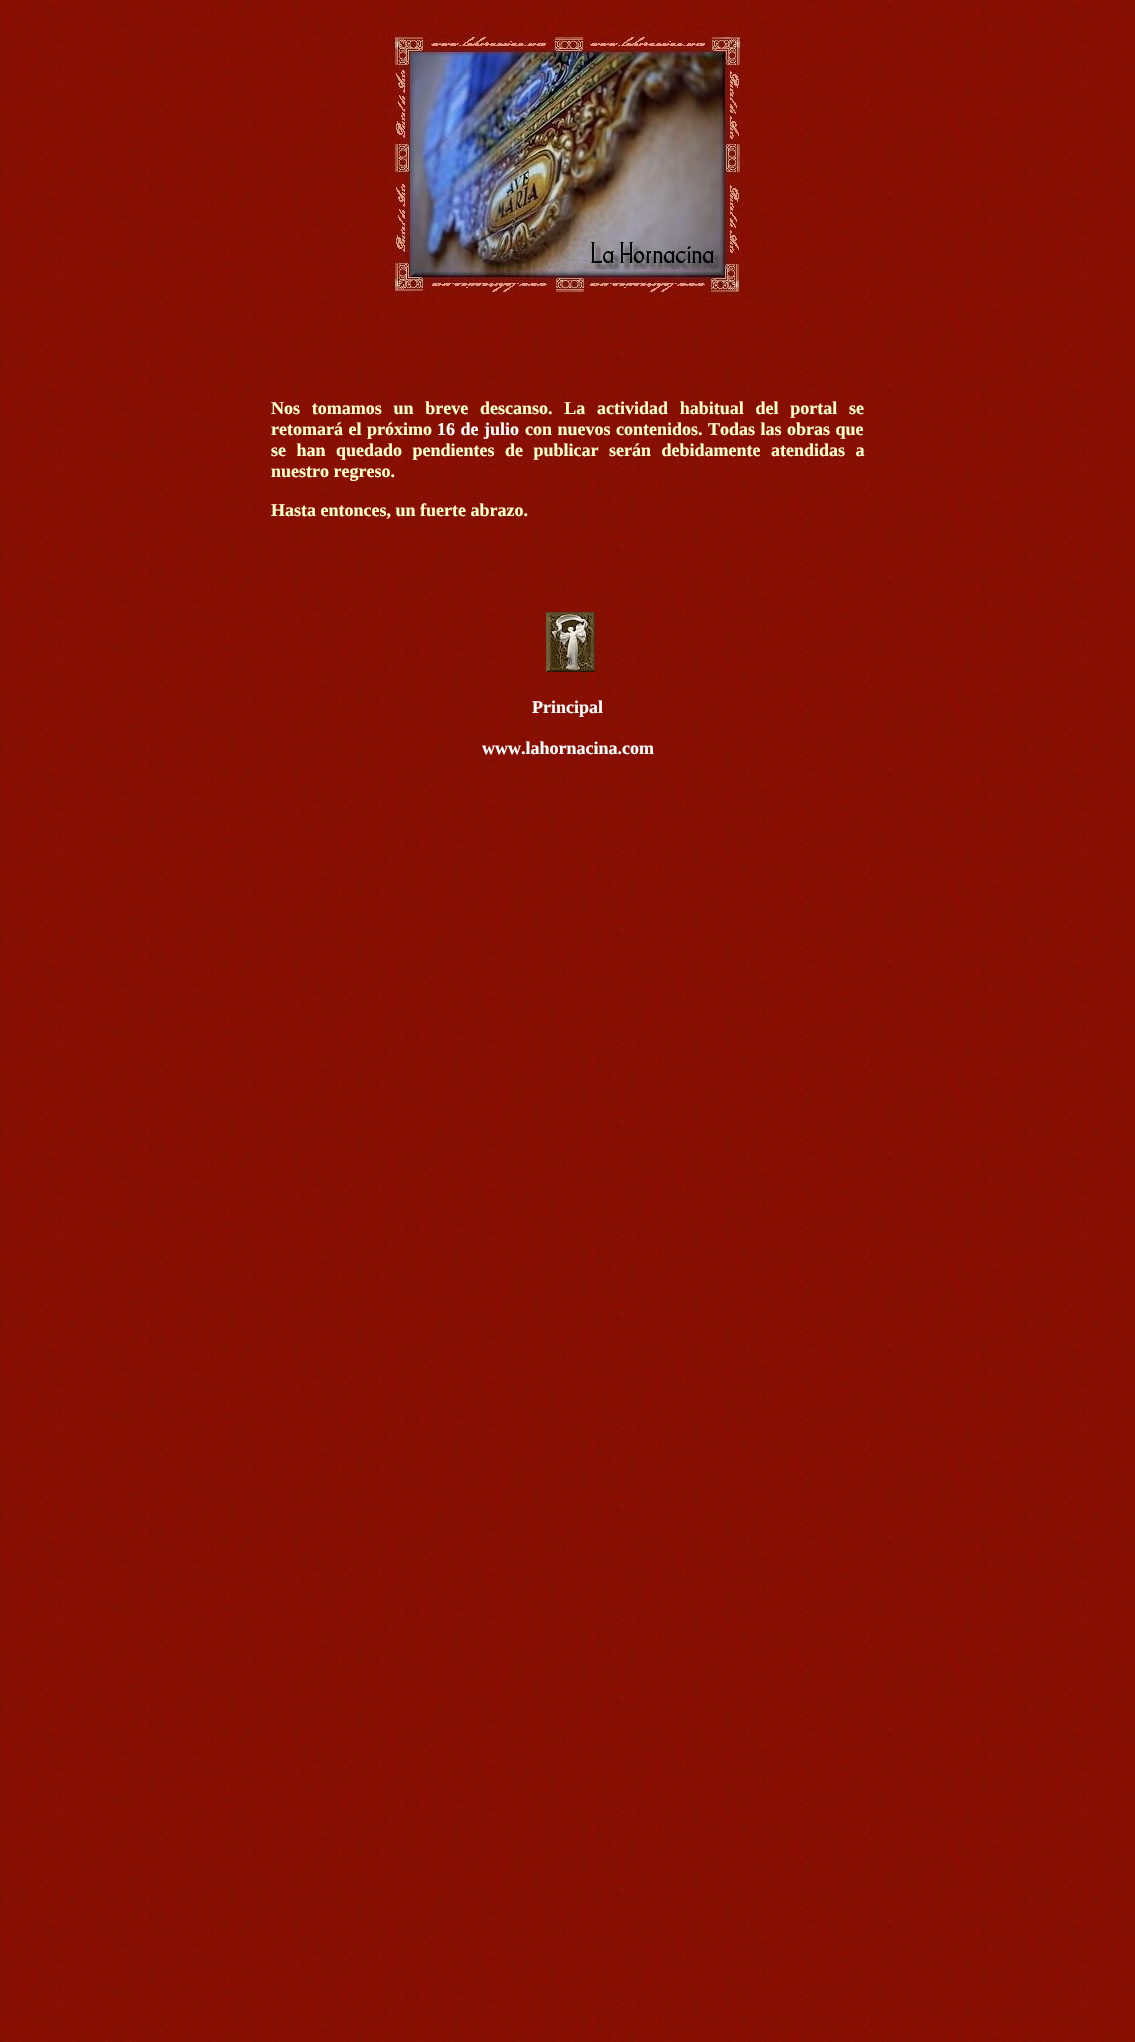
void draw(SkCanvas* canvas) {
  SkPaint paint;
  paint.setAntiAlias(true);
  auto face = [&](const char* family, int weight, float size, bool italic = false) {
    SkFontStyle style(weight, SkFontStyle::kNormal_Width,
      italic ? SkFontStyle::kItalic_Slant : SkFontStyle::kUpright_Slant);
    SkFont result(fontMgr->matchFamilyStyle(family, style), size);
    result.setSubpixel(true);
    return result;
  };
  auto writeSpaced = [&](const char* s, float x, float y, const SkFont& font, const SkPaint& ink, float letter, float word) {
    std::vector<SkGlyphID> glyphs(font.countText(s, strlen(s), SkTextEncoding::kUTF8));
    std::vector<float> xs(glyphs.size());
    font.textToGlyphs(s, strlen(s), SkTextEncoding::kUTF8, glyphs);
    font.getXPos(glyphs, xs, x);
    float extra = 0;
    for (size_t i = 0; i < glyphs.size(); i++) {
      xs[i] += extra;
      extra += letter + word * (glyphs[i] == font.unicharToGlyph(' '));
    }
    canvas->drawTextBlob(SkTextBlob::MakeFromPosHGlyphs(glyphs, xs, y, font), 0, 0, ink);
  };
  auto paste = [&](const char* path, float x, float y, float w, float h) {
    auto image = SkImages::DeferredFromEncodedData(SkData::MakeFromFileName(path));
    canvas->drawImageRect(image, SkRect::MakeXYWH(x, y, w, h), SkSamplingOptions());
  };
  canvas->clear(0xffffffff);
  paste("img/1.png", 0, 0, 1135, 2042);
  paste("img/2.png", 380, 22, 375, 285);
  paste("img/3.png", 546, 612, 49, 60);
  auto f0 = face("Liberation Serif", 700, 18);
  paint.setColor(0xffffffcc);
  writeSpaced("Nos tomamos un breve descanso. La actividad habitual del portal se", 271, 414, f0, paint, 0, 7.25f);
  writeSpaced("retomará el", 271, 435, f0, paint, 0, 1);
  canvas->drawString("próximo", 367, 435, f0, paint);
  paint.setColor(0xffffffff);
  writeSpaced("16 de julio", 437, 435, f0, paint, 0, 1);
  paint.setColor(0xffffffcc);
  writeSpaced("con nuevos contenidos. Todas las obras que", 525, 435, f0, paint, 0, 1);
  writeSpaced("se han quedado pendientes de publicar serán debidamente atendidas a", 271, 456, f0, paint, 0, 6);
  canvas->drawString("nuestro regreso.", 271, 477, f0, paint);
  canvas->drawString("Hasta entonces, un fuerte abrazo.", 271, 516, f0, paint);
  paint.setColor(0xffffffff);
  canvas->drawString("Principal", 532, 713, f0, paint);
  canvas->drawString("www.lahornacina.com", 482, 754, f0, paint);
}
